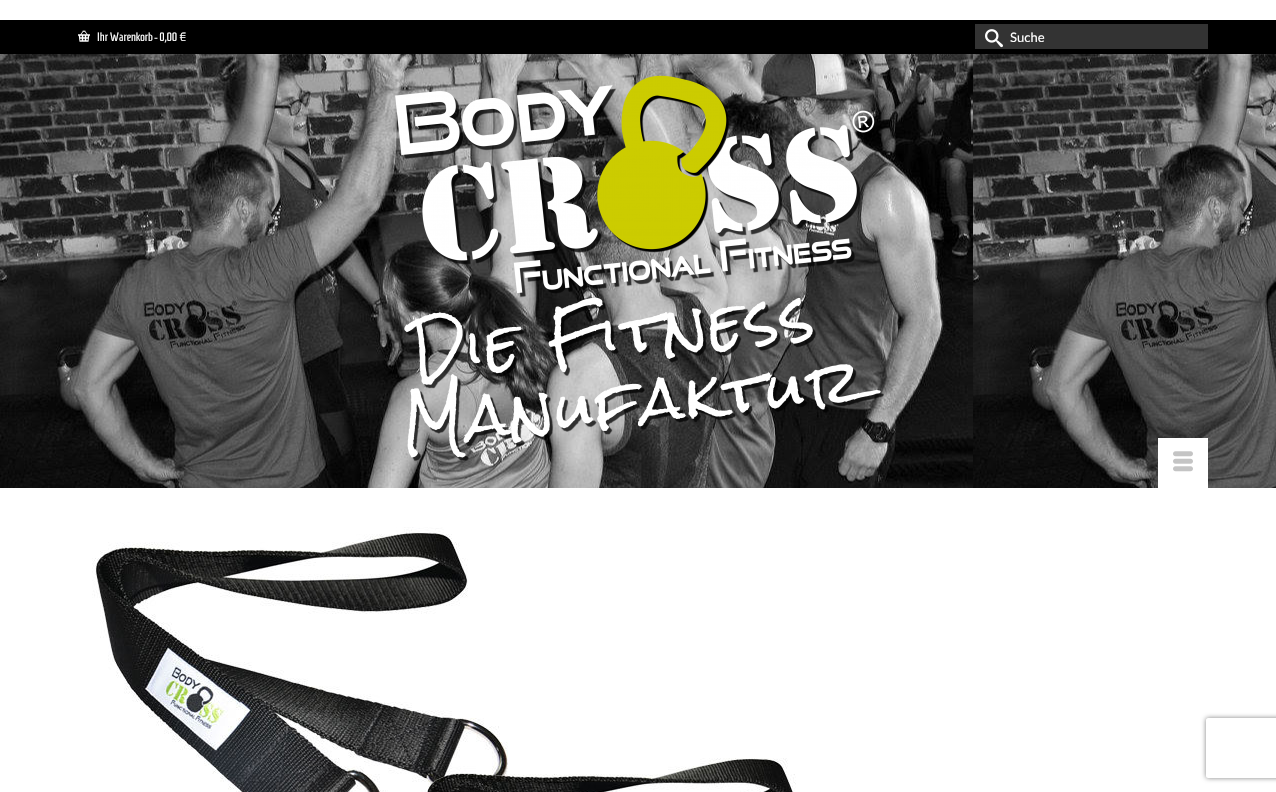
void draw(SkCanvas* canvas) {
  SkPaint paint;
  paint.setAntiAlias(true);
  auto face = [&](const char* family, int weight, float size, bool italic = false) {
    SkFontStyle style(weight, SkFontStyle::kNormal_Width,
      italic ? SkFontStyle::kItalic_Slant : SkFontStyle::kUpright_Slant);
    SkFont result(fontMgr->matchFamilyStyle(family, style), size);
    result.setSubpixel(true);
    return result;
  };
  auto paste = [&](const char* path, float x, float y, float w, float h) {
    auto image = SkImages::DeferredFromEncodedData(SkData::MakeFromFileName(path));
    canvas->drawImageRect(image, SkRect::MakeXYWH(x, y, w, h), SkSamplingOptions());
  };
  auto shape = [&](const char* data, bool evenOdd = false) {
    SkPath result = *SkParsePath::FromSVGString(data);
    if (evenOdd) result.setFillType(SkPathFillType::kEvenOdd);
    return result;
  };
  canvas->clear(0xffffffff);
  paste("img/1.png", 0, 54, 1276, 434);
  paint.setColor(0xff000000);
  canvas->drawRect(SkRect::MakeXYWH(0, 20, 1276, 34), paint);
  paste("img/2.png", 78, 30, 12, 12);
  paint.setColor(0xff333333);
  canvas->drawRect(SkRect::MakeXYWH(975, 24, 233, 25), paint);
  paste("img/3.png", 985, 29, 18, 19);
  paste("img/4.png", 395, 75, 489, 386);
  paint.setColor(0xffffffff);
  canvas->drawRect(SkRect::MakeXYWH(1158, 438, 50, 50), paint);
  paste("img/5.png", 1173, 451, 20, 21);
  paste("img/6.png", 92, 527, 704, 265);
  canvas->save();
  canvas->clipPath(shape("M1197 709H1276V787H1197ZM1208 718H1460C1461 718 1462 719 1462 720V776C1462 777 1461 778 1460 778H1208C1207 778 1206 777 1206 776V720C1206 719 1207 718 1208 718Z", true), true);
  paint.setColor(0xff808080);
  paint.setMaskFilter(SkMaskFilter::MakeBlur(kNormal_SkBlurStyle, 2.5f));
  canvas->drawRoundRect(SkRect::MakeXYWH(1206, 718, 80, 60), 2, 2, paint);
  paint.setMaskFilter(nullptr);
  canvas->restore();
  auto f0 = face("Homenaje", 400, 12);
  paint.setColor(0xffffffff);
  canvas->drawString("Ihr Warenkorb - 0,00 €", 97, 41, f0, paint);
  auto f1 = face("Lato", 400, 13);
  canvas->drawString("Suche", 1010, 42, f1, paint);
}
